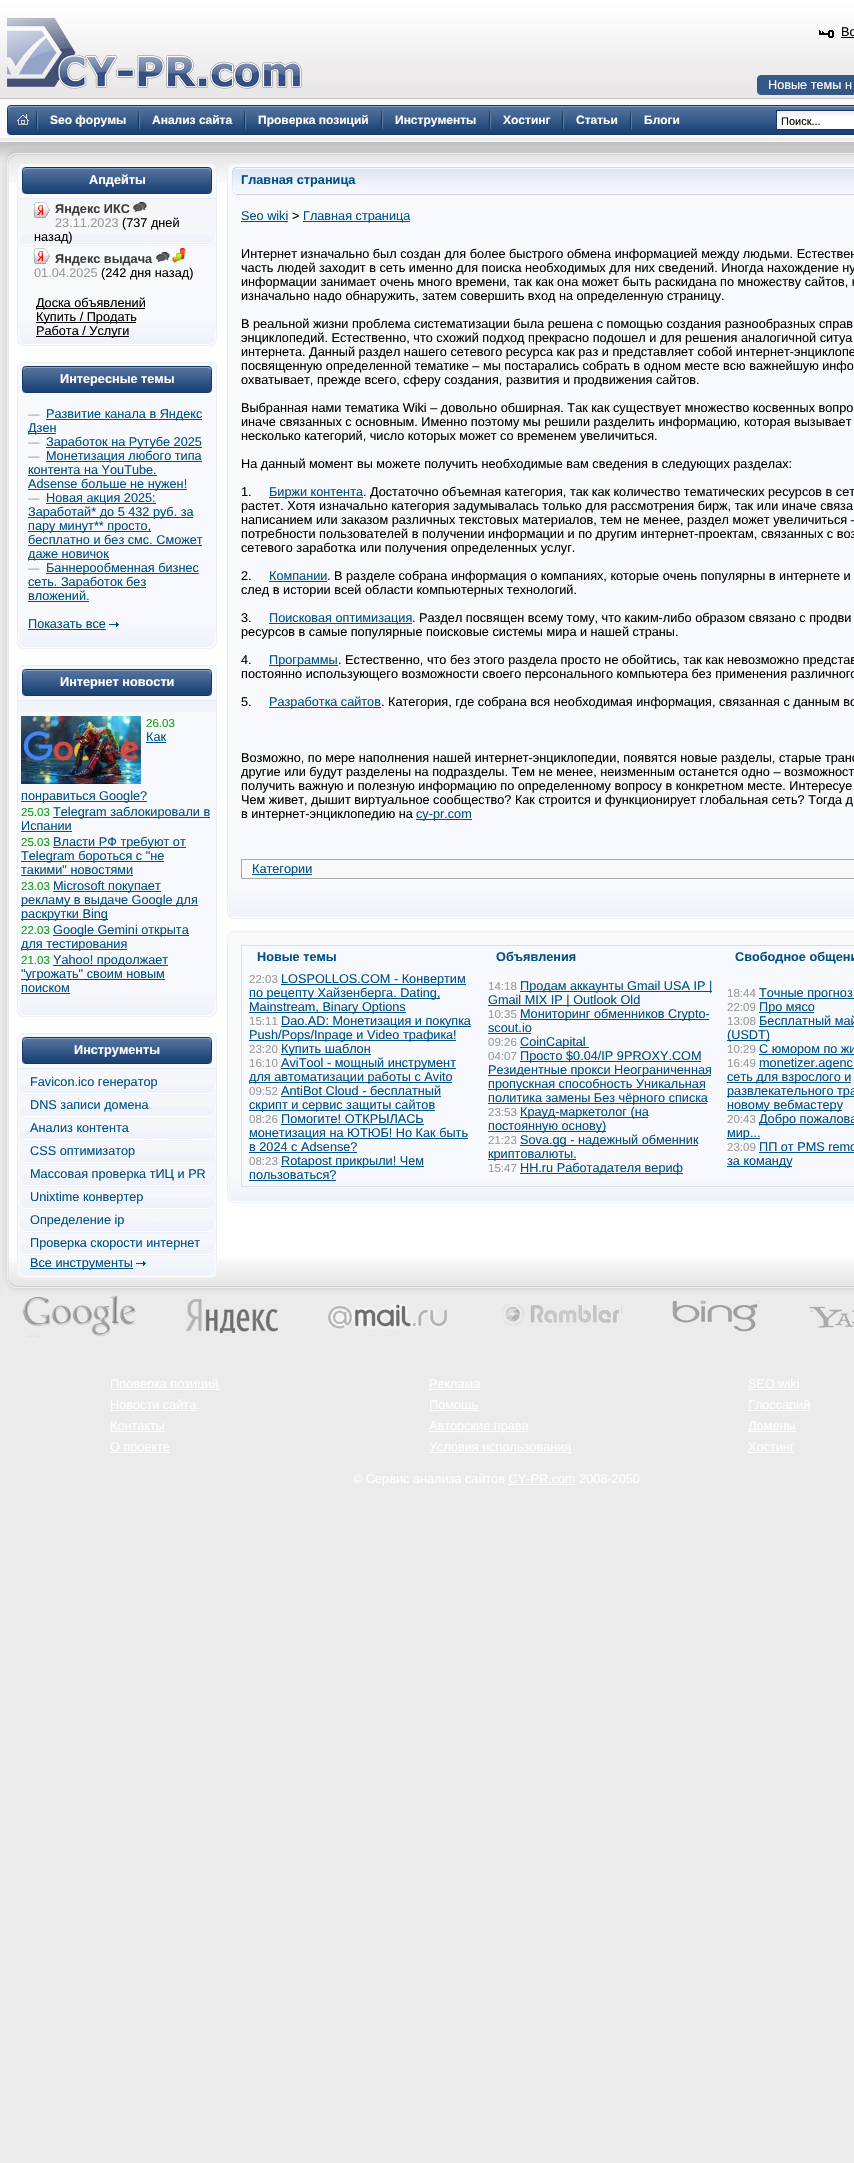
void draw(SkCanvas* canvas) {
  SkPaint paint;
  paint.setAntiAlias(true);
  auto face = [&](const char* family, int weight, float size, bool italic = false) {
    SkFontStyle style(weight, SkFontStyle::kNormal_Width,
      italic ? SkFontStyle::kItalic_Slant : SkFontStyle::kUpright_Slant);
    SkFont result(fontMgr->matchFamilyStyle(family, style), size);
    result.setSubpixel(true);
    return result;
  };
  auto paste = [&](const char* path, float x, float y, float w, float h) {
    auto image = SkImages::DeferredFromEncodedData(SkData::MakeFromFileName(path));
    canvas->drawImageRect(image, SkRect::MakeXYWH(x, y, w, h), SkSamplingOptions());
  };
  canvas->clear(0xffebebeb);
  paste("img/1.png", 0, 0, 854, 148);
  paste("img/2.png", 7, 18, 295, 71);
  paste("img/3.png", 819, 30, 15, 8);
  paint.setColor(0xff000000);
  canvas->drawRect(SkRect::MakeXYWH(841, 37, 13, 1), paint);
  paint.setColor(0xff355888);
  canvas->drawRoundRect(SkRect::MakeXYWH(757.5f, 75.5f, 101, 19), 3.5f, 3.5f, paint);
  paint.setStroke(true);
  paint.setStrokeWidth(1);
  canvas->drawRoundRect(SkRect::MakeXYWH(757.5f, 75.5f, 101, 19), 3.5f, 3.5f, paint);
  paste("img/5.png", 12, 105, 842, 30);
  paste("img/4.png", 17, 114, 12, 11);
  paste("img/6.png", 7, 105, 5, 30);
  paste("img/7.png", 36, 111, 2, 18);
  paste("img/7.png", 138, 111, 2, 18);
  paste("img/7.png", 244, 111, 2, 18);
  paste("img/7.png", 381, 111, 2, 18);
  paste("img/7.png", 489, 111, 2, 18);
  paste("img/7.png", 562, 111, 2, 18);
  paste("img/7.png", 630, 111, 2, 18);
  paste("img/8.png", 777, 111, 77, 18);
  paint.setColor(0xff173867);
  canvas->drawRect(SkRect::MakeXYWH(776.5f, 110.5f, 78, 19), paint);
  paint.setStroke(false);
  paint.setColor(0xffffffff);
  canvas->drawRect(SkRect::MakeXYWH(9, 183, 845, 1075), paint);
  paste("img/9.png", 9, 148, 845, 35);
  paste("img/10.png", 9, 1258, 845, 37);
  paste("img/11.png", 0, 163, 9, 1132);
  paste("img/12.png", 0, 148, 17, 15);
  paste("img/13.png", 18, 163, 7, 4);
  paint.setColor(0xfff8f9fc);
  canvas->drawRect(SkRect::MakeXYWH(25, 164, 184, 3), paint);
  paint.setColor(0xffe9eef8);
  canvas->drawRect(SkRect::MakeXYWH(25, 163, 184, 1), paint);
  paste("img/14.png", 209, 163, 7, 4);
  paint.setColor(0xfff8f9fc);
  canvas->drawRect(SkRect::MakeXYWH(18, 167, 198, 31), paint);
  paste("img/15.png", 22, 167, 190, 28);
  paste("img/16.png", 22, 167, 4, 27);
  paste("img/17.png", 208, 167, 4, 27);
  canvas->drawRect(SkRect::MakeXYWH(18, 246, 198, 73), paint);
  paste("img/18.png", 18, 319, 198, 19);
  {
    const struct { float x, y, w, h; SkColor color; } items[] = {
      {216, 167, 1, 171, 0xffe9eef8},
      {17, 167, 1, 171, 0xffe9eef8},
      {18, 199, 198, 1, 0xfff1f4fa},
      {18, 198, 198, 1, 0xffe9eef8},
      {18, 200, 198, 34, 0xfff6f7fb},
    };
    for (auto [x, y, w, h, color] : items) {
      paint.setColor(color);
      canvas->drawRect(SkRect::MakeXYWH(x, y, w, h), paint);
    }
  }
  paste("img/19.png", 18, 234, 198, 12);
  paste("img/20.png", 34, 202, 16, 16);
  paste("img/21.png", 133, 202, 14, 11);
  paste("img/22.png", 34, 248, 16, 16);
  paste("img/23.png", 156, 252, 14, 11);
  paste("img/24.png", 172, 248, 14, 15);
  {
    const struct { float x, y, w, h; SkColor color; } items[] = {
      {36, 308, 109, 1, 0xff000000},
      {36, 322, 100, 1, 0xff000000},
      {36, 336, 93, 1, 0xff000000},
    };
    for (auto [x, y, w, h, color] : items) {
      paint.setColor(color);
      canvas->drawRect(SkRect::MakeXYWH(x, y, w, h), paint);
    }
  }
  paste("img/25.png", 17, 330, 8, 16);
  paste("img/26.png", 25, 338, 184, 8);
  paste("img/27.png", 209, 330, 8, 16);
  paste("img/28.png", 18, 362, 7, 4);
  paint.setColor(0xfff8f9fc);
  canvas->drawRect(SkRect::MakeXYWH(25, 363, 184, 3), paint);
  paint.setColor(0xffe9eef8);
  canvas->drawRect(SkRect::MakeXYWH(25, 362, 184, 1), paint);
  paste("img/29.png", 209, 362, 7, 4);
  paint.setColor(0xfff8f9fc);
  canvas->drawRect(SkRect::MakeXYWH(18, 366, 198, 256), paint);
  paste("img/15.png", 22, 366, 190, 28);
  paste("img/16.png", 22, 366, 4, 27);
  paste("img/17.png", 208, 366, 4, 27);
  paste("img/18.png", 18, 622, 198, 19);
  {
    const struct { float x, y, w, h; SkColor color; } items[] = {
      {216, 366, 1, 275, 0xffe9eef8},
      {17, 366, 1, 275, 0xffe9eef8},
      {46, 419, 156, 1, 0xff005187},
      {28, 433, 28, 1, 0xff005187},
      {46, 447, 156, 1, 0xff005187},
      {46, 461, 156, 1, 0xff005187},
      {28, 475, 129, 1, 0xff005187},
      {28, 489, 159, 1, 0xff005187},
      {46, 503, 110, 1, 0xff005187},
      {28, 517, 165, 1, 0xff005187},
      {28, 531, 123, 1, 0xff005187},
      {28, 545, 174, 1, 0xff005187},
      {28, 559, 81, 1, 0xff005187},
      {46, 573, 153, 1, 0xff005187},
      {28, 587, 118, 1, 0xff005187},
      {28, 601, 61, 1, 0xff005187},
      {28, 629, 78, 1, 0xff005187},
    };
    for (auto [x, y, w, h, color] : items) {
      paint.setColor(color);
      canvas->drawRect(SkRect::MakeXYWH(x, y, w, h), paint);
    }
  }
  paste("img/30.png", 109, 622, 10, 5);
  paste("img/25.png", 17, 633, 8, 16);
  paste("img/26.png", 25, 641, 184, 8);
  paste("img/27.png", 209, 633, 8, 16);
  paste("img/28.png", 18, 665, 7, 4);
  paint.setColor(0xfff8f9fc);
  canvas->drawRect(SkRect::MakeXYWH(25, 666, 184, 3), paint);
  paint.setColor(0xffe9eef8);
  canvas->drawRect(SkRect::MakeXYWH(25, 665, 184, 1), paint);
  paste("img/29.png", 209, 665, 7, 4);
  paint.setColor(0xfff8f9fc);
  canvas->drawRect(SkRect::MakeXYWH(18, 669, 198, 31), paint);
  paste("img/15.png", 22, 669, 190, 28);
  paste("img/16.png", 22, 669, 4, 27);
  paste("img/17.png", 208, 669, 4, 27);
  canvas->drawRect(SkRect::MakeXYWH(18, 712, 198, 278), paint);
  paste("img/18.png", 18, 990, 198, 19);
  {
    const struct { float x, y, w, h; SkColor color; } items[] = {
      {216, 669, 1, 340, 0xffe9eef8},
      {17, 669, 1, 340, 0xffe9eef8},
      {18, 701, 198, 11, 0xfff1f4fa},
      {18, 700, 198, 1, 0xffe9eef8},
    };
    for (auto [x, y, w, h, color] : items) {
      paint.setColor(color);
      canvas->drawRect(SkRect::MakeXYWH(x, y, w, h), paint);
    }
  }
  paste("img/31.png", 21, 716, 120, 68);
  {
    const struct { float x, y, w, h; SkColor color; } items[] = {
      {146, 742, 20, 1, 0xff005187},
      {21, 801, 126, 1, 0xff005187},
      {53, 817, 157, 1, 0xff005187},
      {21, 831, 51, 1, 0xff005187},
      {53, 847, 133, 1, 0xff005187},
      {21, 861, 143, 1, 0xff005187},
      {21, 875, 112, 1, 0xff005187},
      {53, 891, 108, 1, 0xff005187},
      {21, 905, 177, 1, 0xff005187},
      {21, 919, 87, 1, 0xff005187},
      {53, 935, 136, 1, 0xff005187},
      {21, 949, 106, 1, 0xff005187},
      {53, 965, 115, 1, 0xff005187},
      {21, 979, 144, 1, 0xff005187},
      {21, 993, 49, 1, 0xff005187},
    };
    for (auto [x, y, w, h, color] : items) {
      paint.setColor(color);
      canvas->drawRect(SkRect::MakeXYWH(x, y, w, h), paint);
    }
  }
  paste("img/25.png", 17, 1001, 8, 16);
  paste("img/26.png", 25, 1009, 184, 8);
  paste("img/27.png", 209, 1001, 8, 16);
  paste("img/28.png", 18, 1033, 7, 4);
  paint.setColor(0xfff8f9fc);
  canvas->drawRect(SkRect::MakeXYWH(25, 1034, 184, 3), paint);
  paint.setColor(0xffe9eef8);
  canvas->drawRect(SkRect::MakeXYWH(25, 1033, 184, 1), paint);
  paste("img/29.png", 209, 1033, 7, 4);
  paint.setColor(0xfff8f9fc);
  canvas->drawRect(SkRect::MakeXYWH(18, 1037, 198, 31), paint);
  paste("img/15.png", 22, 1037, 190, 28);
  paste("img/16.png", 22, 1037, 4, 27);
  paste("img/17.png", 208, 1037, 4, 27);
  paste("img/32.png", 19, 1256, 196, 14);
  {
    const struct { float x, y, w, h; SkColor color; } items[] = {
      {216, 1037, 1, 214, 0xffe9eef8},
      {17, 1037, 1, 214, 0xffe9eef8},
      {18, 1069, 198, 1, 0xfff1f4fa},
      {18, 1068, 198, 1, 0xffe9eef8},
      {18, 1070, 198, 174, 0xfff6f7fb},
    };
    for (auto [x, y, w, h, color] : items) {
      paint.setColor(color);
      canvas->drawRect(SkRect::MakeXYWH(x, y, w, h), paint);
    }
  }
  paste("img/19.png", 18, 1083, 198, 12);
  paste("img/19.png", 18, 1106, 198, 12);
  paste("img/19.png", 18, 1129, 198, 12);
  paste("img/19.png", 18, 1152, 198, 12);
  paste("img/19.png", 18, 1175, 198, 12);
  paste("img/19.png", 18, 1198, 198, 12);
  paste("img/19.png", 18, 1221, 198, 12);
  paste("img/19.png", 18, 1244, 198, 12);
  paint.setColor(0xff005187);
  canvas->drawRect(SkRect::MakeXYWH(30, 1268, 103, 1), paint);
  paste("img/33.png", 136, 1261, 10, 5);
  paste("img/34.png", 17, 1251, 8, 27);
  paste("img/26.png", 25, 1270, 184, 8);
  paste("img/35.png", 209, 1251, 8, 27);
  paste("img/13.png", 228, 163, 7, 4);
  {
    const struct { float x, y, w, h; SkColor color; } items[] = {
      {235, 164, 619, 3, 0xfff8f9fc},
      {235, 163, 619, 1, 0xffe9eef8},
      {228, 167, 4, 28, 0xfff8f9fc},
    };
    for (auto [x, y, w, h, color] : items) {
      paint.setColor(color);
      canvas->drawRect(SkRect::MakeXYWH(x, y, w, h), paint);
    }
  }
  paste("img/36.png", 236, 167, 618, 28);
  paste("img/37.png", 232, 167, 4, 28);
  canvas->drawRect(SkRect::MakeXYWH(228, 195, 626, 697), paint);
  paste("img/38.png", 228, 892, 626, 19);
  {
    const struct { float x, y, w, h; SkColor color; } items[] = {
      {227, 167, 1, 744, 0xffe9eef8},
      {241, 221, 47, 1, 0xff005187},
      {303, 221, 107, 1, 0xff005187},
      {269, 497, 94, 1, 0xff005187},
      {269, 581, 58, 1, 0xff005187},
      {269, 623, 143, 1, 0xff005187},
      {269, 665, 69, 1, 0xff005187},
      {269, 707, 112, 1, 0xff005187},
      {416, 819, 56, 1, 0xff005187},
    };
    for (auto [x, y, w, h, color] : items) {
      paint.setColor(color);
      canvas->drawRect(SkRect::MakeXYWH(x, y, w, h), paint);
    }
  }
  paint.setColor(0xfff9f9f9);
  canvas->drawRect(SkRect::MakeXYWH(241.5f, 859.5f, 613, 19), paint);
  paint.setStroke(true);
  paint.setColor(0xffaaaaaa);
  canvas->drawRect(SkRect::MakeXYWH(241.5f, 859.5f, 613, 19), paint);
  paint.setStroke(false);
  paint.setColor(0xff005187);
  canvas->drawRect(SkRect::MakeXYWH(252, 874, 60, 1), paint);
  paste("img/25.png", 227, 903, 8, 16);
  paste("img/39.png", 235, 911, 619, 8);
  paint.setColor(0xffe9eef8);
  canvas->drawRect(SkRect::MakeXYWH(227, 935, 1, 260), paint);
  paste("img/40.png", 227, 931, 8, 6);
  {
    const struct { float x, y, w, h; SkColor color; } items[] = {
      {235, 932, 619, 5, 0xfff8f9fc},
      {235, 931, 619, 1, 0xffe9eef8},
      {228, 937, 626, 239, 0xfff8f9fc},
    };
    for (auto [x, y, w, h, color] : items) {
      paint.setColor(color);
      canvas->drawRect(SkRect::MakeXYWH(x, y, w, h), paint);
    }
  }
  paste("img/38.png", 228, 1176, 626, 19);
  {
    const struct { float x, y, w, h; SkColor color; } items[] = {
      {241, 945, 613, 1, 0xffdae0e7},
      {241, 1186, 613, 1, 0xffdae0e7},
      {241, 945, 1, 242, 0xffdae0e7},
      {281, 984, 185, 1, 0xff005187},
      {249, 998, 191, 1, 0xff005187},
      {249, 1012, 157, 1, 0xff005187},
      {281, 1026, 190, 1, 0xff005187},
      {249, 1040, 207, 1, 0xff005187},
      {281, 1054, 90, 1, 0xff005187},
      {281, 1068, 175, 1, 0xff005187},
      {249, 1082, 203, 1, 0xff005187},
      {281, 1096, 160, 1, 0xff005187},
      {249, 1110, 186, 1, 0xff005187},
      {281, 1124, 143, 1, 0xff005187},
      {249, 1138, 219, 1, 0xff005187},
      {249, 1152, 108, 1, 0xff005187},
      {281, 1166, 143, 1, 0xff005187},
      {249, 1180, 87, 1, 0xff005187},
      {520, 991, 192, 1, 0xff005187},
      {488, 1005, 152, 1, 0xff005187},
      {520, 1019, 189, 1, 0xff005187},
      {488, 1033, 43, 1, 0xff005187},
      {520, 1047, 69, 1, 0xff005187},
      {520, 1061, 181, 1, 0xff005187},
      {488, 1075, 223, 1, 0xff005187},
      {488, 1089, 217, 1, 0xff005187},
      {488, 1103, 219, 1, 0xff005187},
      {520, 1117, 128, 1, 0xff005187},
      {488, 1131, 118, 1, 0xff005187},
      {520, 1145, 178, 1, 0xff005187},
      {488, 1159, 88, 1, 0xff005187},
      {520, 1173, 163, 1, 0xff005187},
      {759, 998, 95, 1, 0xff005187},
      {759, 1012, 55, 1, 0xff005187},
      {759, 1026, 95, 1, 0xff005187},
      {727, 1040, 43, 1, 0xff005187},
      {759, 1054, 95, 1, 0xff005187},
      {759, 1068, 95, 1, 0xff005187},
      {727, 1082, 124, 1, 0xff005187},
      {727, 1096, 127, 1, 0xff005187},
      {727, 1110, 115, 1, 0xff005187},
      {759, 1124, 95, 1, 0xff005187},
      {727, 1138, 33, 1, 0xff005187},
      {759, 1152, 95, 1, 0xff005187},
      {727, 1166, 65, 1, 0xff005187},
    };
    for (auto [x, y, w, h, color] : items) {
      paint.setColor(color);
      canvas->drawRect(SkRect::MakeXYWH(x, y, w, h), paint);
    }
  }
  paste("img/25.png", 227, 1187, 8, 16);
  paste("img/39.png", 235, 1195, 619, 8);
  paste("img/41.png", 3, 1263, 14, 32);
  paste("img/42.png", 22, 1295, 114, 42);
  paste("img/43.png", 186, 1299, 92, 34);
  paste("img/44.png", 328, 1303, 119, 26);
  paste("img/45.png", 502, 1304, 120, 22);
  paste("img/46.png", 672, 1300, 87, 32);
  paste("img/47.png", 809, 1306, 45, 22);
  {
    const struct { float x, y, w, h; SkColor color; } items[] = {
      {110, 1389, 109, 1, 0xffffffff},
      {110, 1410, 86, 1, 0xffffffff},
      {110, 1431, 55, 1, 0xffffffff},
      {110, 1452, 60, 1, 0xffffffff},
      {429, 1389, 51, 1, 0xffffffff},
      {429, 1410, 49, 1, 0xffffffff},
      {429, 1431, 99, 1, 0xffffffff},
      {429, 1452, 142, 1, 0xffffffff},
      {748, 1389, 51, 1, 0xffffffff},
      {748, 1410, 62, 1, 0xffffffff},
      {748, 1431, 48, 1, 0xffffffff},
      {748, 1452, 46, 1, 0xffffffff},
      {508, 1484, 67, 1, 0xffffffff},
    };
    for (auto [x, y, w, h, color] : items) {
      paint.setColor(color);
      canvas->drawRect(SkRect::MakeXYWH(x, y, w, h), paint);
    }
  }
  auto f0 = face("Liberation Sans", 400, 12.7f);
  paint.setColor(0xff000000);
  canvas->drawString("Во", 841, 36, f0, paint);
  paint.setColor(0xffffffff);
  canvas->drawString("Новые темы н", 768, 89, f0, paint);
  auto f1 = face("Liberation Sans", 700, 12);
  {
    const struct { const char* s; float x, y; } items[] = {
      {"Seo форумы", 50, 124},
      {"Анализ сайта", 152, 124},
      {"Проверка позиций", 258, 124},
      {"Инструменты", 395, 124},
      {"Хостинг", 503, 124},
      {"Статьи", 576, 124},
      {"Блоги", 644, 124},
    };
    for (auto [s, x, y] : items) {
      canvas->drawString(s, x, y, f1, paint);
    }
  }
  auto f2 = face("Liberation Sans", 400, 11);
  paint.setColor(0xff000000);
  canvas->drawString("Поиск...", 781, 125, f2, paint);
  auto f3 = face("Liberation Sans", 700, 12.7f);
  paint.setColor(0xffffffff);
  canvas->drawString("Апдейты", 89, 184, f3, paint);
  paint.setColor(0xff3d3d3d);
  canvas->drawString("Яндекс ИКС", 55, 213, f3, paint);
  paint.setColor(0xff9b9b9b);
  canvas->drawString("23.11.2023", 55, 227, f0, paint);
  paint.setColor(0xff000000);
  canvas->drawString("(737 дней", 122, 227, f0, paint);
  canvas->drawString("назад)", 34, 241, f0, paint);
  paint.setColor(0xff3d3d3d);
  canvas->drawString("Яндекс выдача", 55, 263, f3, paint);
  paint.setColor(0xff9b9b9b);
  canvas->drawString("01.04.2025", 34, 277, f0, paint);
  paint.setColor(0xff000000);
  {
    const struct { const char* s; float x, y; } items[] = {
      {"(242 дня назад)", 101, 277},
      {"Доска объявлений", 36, 307},
      {"Купить / Продать", 36, 321},
      {"Работа / Услуги", 36, 335},
    };
    for (auto [s, x, y] : items) {
      canvas->drawString(s, x, y, f0, paint);
    }
  }
  paint.setColor(0xffffffff);
  canvas->drawString("Интересные темы", 60, 383, f3, paint);
  auto f4 = face("Liberation Sans", 400, 11.5f);
  paint.setColor(0xff9b9b9b);
  canvas->drawString("—", 28, 418, f4, paint);
  paint.setColor(0xff005187);
  canvas->drawString("Развитие канала в Яндекс", 46, 418, f0, paint);
  canvas->drawString("Дзен", 28, 432, f0, paint);
  paint.setColor(0xff9b9b9b);
  canvas->drawString("—", 28, 446, f4, paint);
  paint.setColor(0xff005187);
  canvas->drawString("Заработок на Рутубе 2025", 46, 446, f0, paint);
  paint.setColor(0xff9b9b9b);
  canvas->drawString("—", 28, 460, f4, paint);
  paint.setColor(0xff005187);
  {
    const struct { const char* s; float x, y; } items[] = {
      {"Монетизация любого типа", 46, 460},
      {"контента на YouTube.", 28, 474},
      {"Adsense больше не нужен!", 28, 488},
    };
    for (auto [s, x, y] : items) {
      canvas->drawString(s, x, y, f0, paint);
    }
  }
  paint.setColor(0xff9b9b9b);
  canvas->drawString("—", 28, 502, f4, paint);
  paint.setColor(0xff005187);
  {
    const struct { const char* s; float x, y; } items[] = {
      {"Новая акция 2025:", 46, 502},
      {"Заработай* до 5 432 руб. за", 28, 516},
      {"пару минут** просто,", 28, 530},
      {"бесплатно и без смс. Сможет", 28, 544},
      {"даже новичок", 28, 558},
    };
    for (auto [s, x, y] : items) {
      canvas->drawString(s, x, y, f0, paint);
    }
  }
  paint.setColor(0xff9b9b9b);
  canvas->drawString("—", 28, 572, f4, paint);
  paint.setColor(0xff005187);
  {
    const struct { const char* s; float x, y; } items[] = {
      {"Баннерообменная бизнес", 46, 572},
      {"сеть. Заработок без", 28, 586},
      {"вложений.", 28, 600},
      {"Показать все", 28, 628},
    };
    for (auto [s, x, y] : items) {
      canvas->drawString(s, x, y, f0, paint);
    }
  }
  paint.setColor(0xffffffff);
  canvas->drawString("Интернет новости", 60, 686, f3, paint);
  paint.setColor(0xff109f14);
  canvas->drawString("26.03", 146, 727, f4, paint);
  paint.setColor(0xff005187);
  canvas->drawString("Как", 146, 741, f0, paint);
  canvas->drawString("понравиться Google?", 21, 800, f0, paint);
  paint.setColor(0xff109f14);
  canvas->drawString("25.03", 21, 816, f4, paint);
  paint.setColor(0xff005187);
  canvas->drawString("Telegram заблокировали в", 53, 816, f0, paint);
  canvas->drawString("Испании", 21, 830, f0, paint);
  paint.setColor(0xff109f14);
  canvas->drawString("25.03", 21, 846, f4, paint);
  paint.setColor(0xff005187);
  {
    const struct { const char* s; float x, y; } items[] = {
      {"Власти РФ требуют от", 53, 846},
      {"Telegram бороться с \"не", 21, 860},
      {"такими\" новостями", 21, 874},
    };
    for (auto [s, x, y] : items) {
      canvas->drawString(s, x, y, f0, paint);
    }
  }
  paint.setColor(0xff109f14);
  canvas->drawString("23.03", 21, 890, f4, paint);
  paint.setColor(0xff005187);
  {
    const struct { const char* s; float x, y; } items[] = {
      {"Microsoft покупает", 53, 890},
      {"рекламу в выдаче Google для", 21, 904},
      {"раскрутки Bing", 21, 918},
    };
    for (auto [s, x, y] : items) {
      canvas->drawString(s, x, y, f0, paint);
    }
  }
  paint.setColor(0xff109f14);
  canvas->drawString("22.03", 21, 934, f4, paint);
  paint.setColor(0xff005187);
  canvas->drawString("Google Gemini открыта", 53, 934, f0, paint);
  canvas->drawString("для тестирования", 21, 948, f0, paint);
  paint.setColor(0xff109f14);
  canvas->drawString("21.03", 21, 964, f4, paint);
  paint.setColor(0xff005187);
  {
    const struct { const char* s; float x, y; } items[] = {
      {"Yahoo! продолжает", 53, 964},
      {"\"угрожать\" своим новым", 21, 978},
      {"поиском", 21, 992},
    };
    for (auto [s, x, y] : items) {
      canvas->drawString(s, x, y, f0, paint);
    }
  }
  paint.setColor(0xffffffff);
  canvas->drawString("Инструменты", 74, 1054, f3, paint);
  paint.setColor(0xff005187);
  {
    const struct { const char* s; float x, y; } items[] = {
      {"Favicon.ico генератор", 30, 1086},
      {"DNS записи домена", 30, 1109},
      {"Анализ контента", 30, 1132},
      {"CSS оптимизатор", 30, 1155},
      {"Массовая проверка тИЦ и PR", 30, 1178},
      {"Unixtime конвертер", 30, 1201},
      {"Определение ip", 30, 1224},
      {"Проверка скорости интернет", 30, 1247},
      {"Все инструменты", 30, 1267},
    };
    for (auto [s, x, y] : items) {
      canvas->drawString(s, x, y, f0, paint);
    }
  }
  canvas->drawString("Главная страница", 241, 184, f3, paint);
  canvas->drawString("Seo wiki", 241, 220, f0, paint);
  paint.setColor(0xff000000);
  canvas->drawString(">", 292, 220, f0, paint);
  paint.setColor(0xff005187);
  canvas->drawString("Главная страница", 303, 220, f0, paint);
  paint.setColor(0xff000000);
  {
    const struct { const char* s; float x, y; } items[] = {
      {"Интернет изначально был создан для более быстрого обмена информацией между людьми. Естествен", 241, 258},
      {"часть людей заходит в сеть именно для поиска необходимых для них сведений. Иногда нахождение ну", 241, 272},
      {"информации занимает очень много времени, так как она может быть раскидана по множеству сайтов, к", 241, 286},
      {"изначально надо обнаружить, затем совершить вход на определенную страницу.", 241, 300},
      {"В реальной жизни проблема систематизации была решена с помощью создания разнообразных справ", 241, 328},
      {"энциклопедий. Естественно, что схожий подход прекрасно подошел и для решения аналогичной ситуа", 241, 342},
      {"интернета. Данный раздел нашего сетевого ресурса как раз и представляет собой интернет-энциклопе", 241, 356},
      {"посвященную определенной тематике – мы постарались собрать в одном месте всю важнейшую инфо", 241, 370},
      {"охватывает, прежде всего, сферу создания, развития и продвижения сайтов.", 241, 384},
      {"Выбранная нами тематика Wiki – довольно обширная. Так как существует множество косвенных вопро", 241, 412},
      {"иначе связанных с основным. Именно поэтому мы решили разделить информацию, которая вызывает", 241, 426},
      {"несколько категорий, число которых может со временем увеличиться.", 241, 440},
      {"На данный момент вы можете получить необходимые вам сведения в следующих разделах:", 241, 468},
      {"1.", 241, 496},
    };
    for (auto [s, x, y] : items) {
      canvas->drawString(s, x, y, f0, paint);
    }
  }
  paint.setColor(0xff005187);
  canvas->drawString("Биржи контента", 269, 496, f0, paint);
  paint.setColor(0xff000000);
  {
    const struct { const char* s; float x, y; } items[] = {
      {". Достаточно объемная категория, так как количество тематических ресурсов в сет", 363, 496},
      {"растет. Хотя изначально категория задумывалась только для рассмотрения бирж, так или иначе связа", 241, 510},
      {"написанием или заказом различных текстовых материалов, тем не менее, раздел может увеличиться –", 241, 524},
      {"потребности пользователей в получении информации и по другим интернет-проектам, связанных с воз", 241, 538},
      {"сетевого заработка или получения определенных услуг.", 241, 552},
      {"2.", 241, 580},
    };
    for (auto [s, x, y] : items) {
      canvas->drawString(s, x, y, f0, paint);
    }
  }
  paint.setColor(0xff005187);
  canvas->drawString("Компании", 269, 580, f0, paint);
  paint.setColor(0xff000000);
  {
    const struct { const char* s; float x, y; } items[] = {
      {". В разделе собрана информация о компаниях, которые очень популярны в интернете и", 327, 580},
      {"след в истории всей области компьютерных технологий.", 241, 594},
      {"3.", 241, 622},
    };
    for (auto [s, x, y] : items) {
      canvas->drawString(s, x, y, f0, paint);
    }
  }
  paint.setColor(0xff005187);
  canvas->drawString("Поисковая оптимизация", 269, 622, f0, paint);
  paint.setColor(0xff000000);
  {
    const struct { const char* s; float x, y; } items[] = {
      {". Раздел посвящен всему тому, что каким-либо образом связано с продви", 412, 622},
      {"ресурсов в самые популярные поисковые системы мира и нашей страны.", 241, 636},
      {"4.", 241, 664},
    };
    for (auto [s, x, y] : items) {
      canvas->drawString(s, x, y, f0, paint);
    }
  }
  paint.setColor(0xff005187);
  canvas->drawString("Программы", 269, 664, f0, paint);
  paint.setColor(0xff000000);
  {
    const struct { const char* s; float x, y; } items[] = {
      {". Естественно, что без этого раздела просто не обойтись, так как невозможно представ", 338, 664},
      {"постоянно использующего возможности своего персонального компьютера без применения различного", 241, 678},
      {"5.", 241, 706},
    };
    for (auto [s, x, y] : items) {
      canvas->drawString(s, x, y, f0, paint);
    }
  }
  paint.setColor(0xff005187);
  canvas->drawString("Разработка сайтов", 269, 706, f0, paint);
  paint.setColor(0xff000000);
  {
    const struct { const char* s; float x, y; } items[] = {
      {". Категория, где собрана вся необходимая информация, связанная с данным во", 381, 706},
      {"Возможно, по мере наполнения нашей интернет-энциклопедии, появятся новые разделы, старые транс", 241, 762},
      {"другие или будут разделены на подразделы. Тем не менее, неизменным останется одно – возможност", 241, 776},
      {"получить важную и полезную информацию по определенному вопросу в конкретном месте. Интересуе", 241, 790},
      {"Чем живет, дышит виртуальное сообщество? Как строится и функционирует глобальная сеть? Тогда д", 241, 804},
      {"в интернет-энциклопедию на", 241, 818},
    };
    for (auto [s, x, y] : items) {
      canvas->drawString(s, x, y, f0, paint);
    }
  }
  paint.setColor(0xff005187);
  canvas->drawString("cy-pr.com", 416, 818, f0, paint);
  canvas->drawString("Категории", 252, 873, f0, paint);
  {
    const struct { const char* s; float x, y; } items[] = {
      {"Новые темы", 257, 961},
      {"Объявления", 496, 961},
      {"Свободное общени", 735, 961},
    };
    for (auto [s, x, y] : items) {
      canvas->drawString(s, x, y, f3, paint);
    }
  }
  paint.setColor(0xff9b9b9b);
  canvas->drawString("22:03", 249, 983, f4, paint);
  paint.setColor(0xff005187);
  {
    const struct { const char* s; float x, y; } items[] = {
      {"LOSPOLLOS.COM - Конвертим", 281, 983},
      {"по рецепту Хайзенберга. Dating,", 249, 997},
      {"Mainstream, Binary Options", 249, 1011},
    };
    for (auto [s, x, y] : items) {
      canvas->drawString(s, x, y, f0, paint);
    }
  }
  paint.setColor(0xff9b9b9b);
  canvas->drawString("15:11", 249, 1025, f4, paint);
  paint.setColor(0xff005187);
  canvas->drawString("Dao.AD: Монетизация и покупка", 281, 1025, f0, paint);
  canvas->drawString("Push/Pops/Inpage и Video трафика!", 249, 1039, f0, paint);
  paint.setColor(0xff9b9b9b);
  canvas->drawString("23:20", 249, 1053, f4, paint);
  paint.setColor(0xff005187);
  canvas->drawString("Купить шаблон", 281, 1053, f0, paint);
  paint.setColor(0xff9b9b9b);
  canvas->drawString("16:10", 249, 1067, f4, paint);
  paint.setColor(0xff005187);
  canvas->drawString("AviTool - мощный инструмент", 281, 1067, f0, paint);
  canvas->drawString("для автоматизации работы с Avito", 249, 1081, f0, paint);
  paint.setColor(0xff9b9b9b);
  canvas->drawString("09:52", 249, 1095, f4, paint);
  paint.setColor(0xff005187);
  canvas->drawString("AntiBot Cloud - бесплатный", 281, 1095, f0, paint);
  canvas->drawString("скрипт и сервис защиты сайтов", 249, 1109, f0, paint);
  paint.setColor(0xff9b9b9b);
  canvas->drawString("08:26", 249, 1123, f4, paint);
  paint.setColor(0xff005187);
  {
    const struct { const char* s; float x, y; } items[] = {
      {"Помогите! ОТКРЫЛАСЬ", 281, 1123},
      {"монетизация на ЮТЮБ! Но Как быть", 249, 1137},
      {"в 2024 с Adsense?", 249, 1151},
    };
    for (auto [s, x, y] : items) {
      canvas->drawString(s, x, y, f0, paint);
    }
  }
  paint.setColor(0xff9b9b9b);
  canvas->drawString("08:23", 249, 1165, f4, paint);
  paint.setColor(0xff005187);
  canvas->drawString("Rotapost прикрыли! Чем", 281, 1165, f0, paint);
  canvas->drawString("пользоваться?", 249, 1179, f0, paint);
  paint.setColor(0xff9b9b9b);
  canvas->drawString("14:18", 488, 990, f4, paint);
  paint.setColor(0xff005187);
  canvas->drawString("Продам аккаунты Gmail USA IP |", 520, 990, f0, paint);
  canvas->drawString("Gmail MIX IP | Outlook Old", 488, 1004, f0, paint);
  paint.setColor(0xff9b9b9b);
  canvas->drawString("10:35", 488, 1018, f4, paint);
  paint.setColor(0xff005187);
  canvas->drawString("Мониторинг обменников Сrypto-", 520, 1018, f0, paint);
  canvas->drawString("scout.io", 488, 1032, f0, paint);
  paint.setColor(0xff9b9b9b);
  canvas->drawString("09:26", 488, 1046, f4, paint);
  paint.setColor(0xff005187);
  canvas->drawString("CoinCapital", 520, 1046, f0, paint);
  paint.setColor(0xff9b9b9b);
  canvas->drawString("04:07", 488, 1060, f4, paint);
  paint.setColor(0xff005187);
  {
    const struct { const char* s; float x, y; } items[] = {
      {"Просто $0.04/IP 9PROXY.COM", 520, 1060},
      {"Резидентные прокси Неограниченная", 488, 1074},
      {"пропускная способность Уникальная", 488, 1088},
      {"политика замены Без чёрного списка", 488, 1102},
    };
    for (auto [s, x, y] : items) {
      canvas->drawString(s, x, y, f0, paint);
    }
  }
  paint.setColor(0xff9b9b9b);
  canvas->drawString("23:53", 488, 1116, f4, paint);
  paint.setColor(0xff005187);
  canvas->drawString("Крауд-маркетолог (на", 520, 1116, f0, paint);
  canvas->drawString("постоянную основу)", 488, 1130, f0, paint);
  paint.setColor(0xff9b9b9b);
  canvas->drawString("21:23", 488, 1144, f4, paint);
  paint.setColor(0xff005187);
  canvas->drawString("Sova.gg - надежный обменник", 520, 1144, f0, paint);
  canvas->drawString("криптовалюты.", 488, 1158, f0, paint);
  paint.setColor(0xff9b9b9b);
  canvas->drawString("15:47", 488, 1172, f4, paint);
  paint.setColor(0xff005187);
  canvas->drawString("HH.ru Работадателя вериф", 520, 1172, f0, paint);
  paint.setColor(0xff9b9b9b);
  canvas->drawString("18:44", 727, 997, f4, paint);
  paint.setColor(0xff005187);
  canvas->drawString("Точные прогноз", 759, 997, f0, paint);
  paint.setColor(0xff9b9b9b);
  canvas->drawString("22:09", 727, 1011, f4, paint);
  paint.setColor(0xff005187);
  canvas->drawString("Про мясо", 759, 1011, f0, paint);
  paint.setColor(0xff9b9b9b);
  canvas->drawString("13:08", 727, 1025, f4, paint);
  paint.setColor(0xff005187);
  canvas->drawString("Бесплатный май", 759, 1025, f0, paint);
  canvas->drawString("(USDT)", 727, 1039, f0, paint);
  paint.setColor(0xff9b9b9b);
  canvas->drawString("10:29", 727, 1053, f4, paint);
  paint.setColor(0xff005187);
  canvas->drawString("С юмором по жи", 759, 1053, f0, paint);
  paint.setColor(0xff9b9b9b);
  canvas->drawString("16:49", 727, 1067, f4, paint);
  paint.setColor(0xff005187);
  {
    const struct { const char* s; float x, y; } items[] = {
      {"monetizer.agenc", 759, 1067},
      {"сеть для взрослого и", 727, 1081},
      {"развлекательного тра", 727, 1095},
      {"новому вебмастеру", 727, 1109},
    };
    for (auto [s, x, y] : items) {
      canvas->drawString(s, x, y, f0, paint);
    }
  }
  paint.setColor(0xff9b9b9b);
  canvas->drawString("20:43", 727, 1123, f4, paint);
  paint.setColor(0xff005187);
  canvas->drawString("Добро пожалова", 759, 1123, f0, paint);
  canvas->drawString("мир...", 727, 1137, f0, paint);
  paint.setColor(0xff9b9b9b);
  canvas->drawString("23:09", 727, 1151, f4, paint);
  paint.setColor(0xff005187);
  canvas->drawString("ПП от PMS remo", 759, 1151, f0, paint);
  canvas->drawString("за команду", 727, 1165, f0, paint);
  paint.setColor(0xffffffff);
  {
    const struct { const char* s; float x, y; } items[] = {
      {"Проверка позиций", 110, 1388},
      {"Новости сайта", 110, 1409},
      {"Контакты", 110, 1430},
      {"О проекте", 110, 1451},
      {"Реклама", 429, 1388},
      {"Помощь", 429, 1409},
      {"Авторские права", 429, 1430},
      {"Условия использования", 429, 1451},
      {"SEO wiki", 748, 1388},
      {"Глоссарий", 748, 1409},
      {"Домены", 748, 1430},
      {"Хостинг", 748, 1451},
      {"© Сервис анализа сайтов CY-PR.com 2008-2050", 353, 1483},
    };
    for (auto [s, x, y] : items) {
      canvas->drawString(s, x, y, f0, paint);
    }
  }
}
